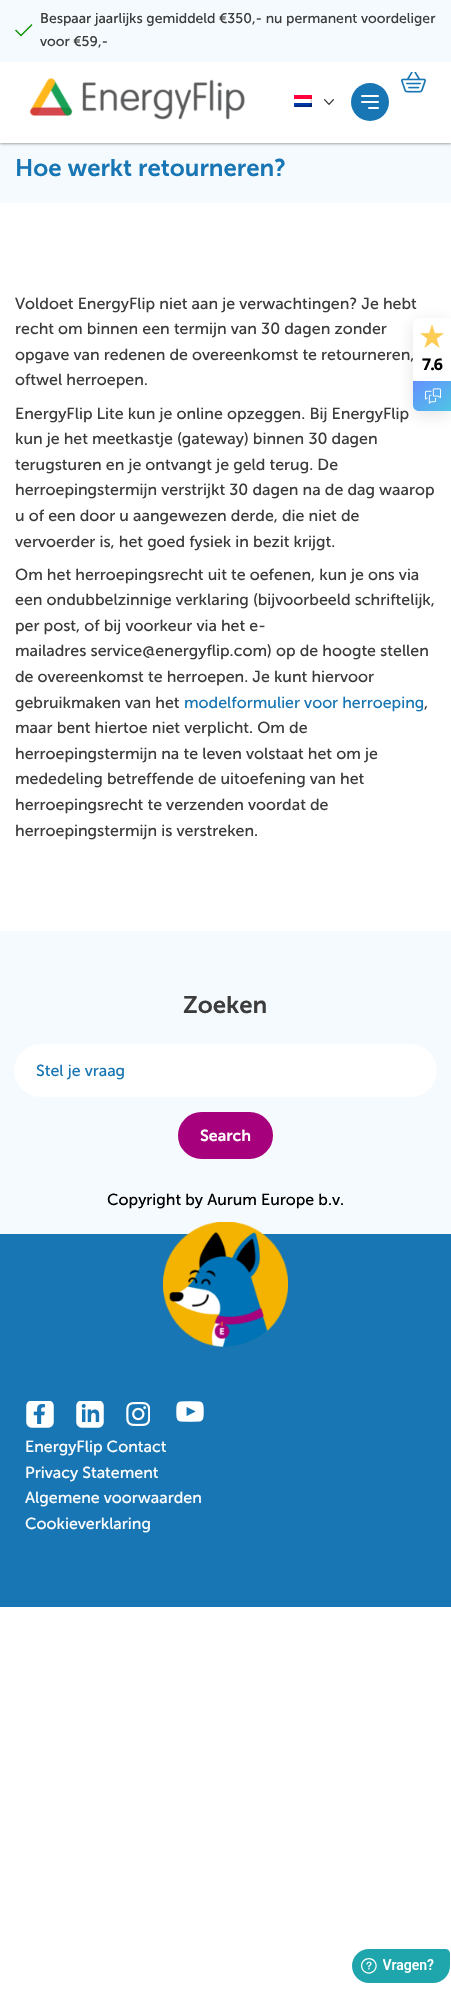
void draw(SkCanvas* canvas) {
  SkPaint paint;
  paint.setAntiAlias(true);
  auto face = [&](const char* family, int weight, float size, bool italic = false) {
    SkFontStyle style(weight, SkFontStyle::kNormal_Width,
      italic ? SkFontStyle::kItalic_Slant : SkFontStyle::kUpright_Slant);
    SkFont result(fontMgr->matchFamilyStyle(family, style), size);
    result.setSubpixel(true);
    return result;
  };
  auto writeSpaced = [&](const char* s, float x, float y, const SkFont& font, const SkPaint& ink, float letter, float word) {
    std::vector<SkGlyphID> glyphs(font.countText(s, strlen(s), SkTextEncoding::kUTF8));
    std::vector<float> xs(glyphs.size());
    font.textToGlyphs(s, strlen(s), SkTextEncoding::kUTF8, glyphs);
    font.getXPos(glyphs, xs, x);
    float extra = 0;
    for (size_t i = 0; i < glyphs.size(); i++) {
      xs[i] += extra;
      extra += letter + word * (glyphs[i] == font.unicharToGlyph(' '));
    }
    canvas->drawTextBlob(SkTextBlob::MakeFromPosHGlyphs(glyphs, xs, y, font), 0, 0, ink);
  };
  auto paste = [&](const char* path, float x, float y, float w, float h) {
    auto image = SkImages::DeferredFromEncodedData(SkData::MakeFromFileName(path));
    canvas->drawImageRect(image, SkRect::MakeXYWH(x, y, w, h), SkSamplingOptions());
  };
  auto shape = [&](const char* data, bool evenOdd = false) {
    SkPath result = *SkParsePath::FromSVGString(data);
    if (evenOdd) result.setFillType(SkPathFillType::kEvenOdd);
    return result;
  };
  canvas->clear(0xffffffff);
  paint.setColor(0xfff4fafd);
  canvas->drawRect(SkRect::MakeXYWH(0, 143, 451, 60), paint);
  paint.setColor(0x3d000000);
  paint.setMaskFilter(SkMaskFilter::MakeBlur(kNormal_SkBlurStyle, 1));
  canvas->drawRect(SkRect::MakeXYWH(0, 1, 451, 143), paint);
  paint.setMaskFilter(nullptr);
  paint.setColor(0x1f000000);
  paint.setMaskFilter(SkMaskFilter::MakeBlur(kNormal_SkBlurStyle, 1.5f));
  canvas->drawRect(SkRect::MakeXYWH(0, 1, 451, 143), paint);
  paint.setMaskFilter(nullptr);
  paint.setColor(0xffffffff);
  canvas->drawRect(SkRect::MakeXYWH(0, 62, 451, 81), paint);
  paint.setColor(0xfff4fafd);
  canvas->drawRect(SkRect::MakeXYWH(0, 0, 451, 62), paint);
  paint.setColor(0xff0e9305);
  canvas->drawPath(shape("M21 36.5L15 30.5L16 29.5L21 34.5L31.5 24L32.5 25Z"), paint);
  paste("img/1.png", 29, 78, 216, 42);
  paste("img/2.png", 294, 95, 18, 12);
  paste("img/3.png", 324, 99, 10, 6);
  paint.setColor(0xff1876b4);
  canvas->drawCircle(370, 102, 19, paint);
  paint.setColor(0xffffffff);
  canvas->drawRoundRect(SkRect::MakeXYWH(361, 101, 18, 2), 1, 1, paint);
  canvas->drawRoundRect(SkRect::MakeXYWH(361, 95, 18, 2), 1, 1, paint);
  canvas->drawRoundRect(SkRect::MakeXYWH(368, 107, 11, 2), 1, 1, paint);
  paste("img/4.png", 401, 72, 25, 21);
  paint.setColor(0x1f1e1e1e);
  paint.setMaskFilter(SkMaskFilter::MakeBlur(kNormal_SkBlurStyle, 8));
  canvas->drawRoundRect(SkRect::MakeXYWH(413, 322, 38, 93), 6, 6, paint);
  paint.setMaskFilter(nullptr);
  paint.setColor(0xfff4fafd);
  canvas->drawRect(SkRect::MakeXYWH(0, 931, 451, 303), paint);
  paint.setColor(0xffffffff);
  canvas->drawRoundRect(SkRect::MakeXYWH(14, 1044, 423, 53), 26.5f, 26.5f, paint);
  paint.setColor(0xffa7007c);
  canvas->drawRoundRect(SkRect::MakeXYWH(179, 1113, 93, 45), 22.5f, 22.5f, paint);
  paint.setStroke(true);
  paint.setStrokeWidth(2);
  canvas->drawRoundRect(SkRect::MakeXYWH(179, 1113, 93, 45), 22.5f, 22.5f, paint);
  paint.setStroke(false);
  paint.setColor(0xff1876b4);
  canvas->drawRect(SkRect::MakeXYWH(0, 1234, 451, 373), paint);
  paste("img/7.png", 163, 1222, 125, 125);
  paste("img/8.png", 26, 1401, 28, 27);
  paste("img/9.png", 76, 1401, 28, 27);
  paste("img/10.png", 126, 1402, 24, 24);
  paste("img/11.png", 176, 1401, 28, 21);
  paste("img/12.png", 352, 1949, 99, 34);
  auto f0 = face("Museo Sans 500", 400, 14);
  paint.setColor(0xff3c3c3c);
  canvas->drawString("Bespaar jaarlijks gemiddeld €350,- nu permanent voordeliger", 40, 23, f0, paint);
  canvas->drawString("voor €59,-", 40, 46, f0, paint);
  auto f1 = face("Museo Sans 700", 600, 24);
  paint.setColor(0xff1876b4);
  canvas->drawString("Hoe werkt retourneren?", 15, 176, f1, paint);
  auto f2 = face("Museo Sans 500", 400, 16);
  paint.setColor(0xff3c3c3c);
  {
    const struct { const char* s; float x, y; } items[] = {
      {"Voldoet EnergyFlip niet aan je verwachtingen? Je hebt", 15, 309},
      {"recht om binnen een termijn van 30 dagen zonder", 15, 334},
      {"opgave van redenen de overeenkomst te retourneren,", 15, 360},
      {"oftwel herroepen.", 15, 385},
      {"EnergyFlip Lite kun je online opzeggen. Bij EnergyFlip", 15, 419},
      {"kun je het meetkastje (gateway) binnen 30 dagen", 15, 444},
      {"terugsturen en je ontvangt je geld terug. De", 15, 470},
      {"herroepingstermijn verstrijkt 30 dagen na de dag waarop", 15, 495},
      {"u of een door u aangewezen derde, die niet de", 15, 521},
      {"vervoerder is, het goed fysiek in bezit krijgt.", 15, 547},
      {"Om het herroepingsrecht uit te oefenen, kun je ons via", 15, 580},
      {"een ondubbelzinnige verklaring (bijvoorbeeld schriftelijk,", 15, 605},
      {"per post, of bij voorkeur via het e-", 15, 631},
      {"mailadres service@energyflip.com) op de hoogte stellen", 15, 656},
      {"de overeenkomst te herroepen. Je kunt hiervoor", 15, 682},
      {"gebruikmaken van het", 15, 708},
    };
    for (auto [s, x, y] : items) {
      canvas->drawString(s, x, y, f2, paint);
    }
  }
  paint.setColor(0xff1876b4);
  canvas->drawString("modelformulier voor herroeping", 184, 708, f2, paint);
  paint.setColor(0xff3c3c3c);
  {
    const struct { const char* s; float x, y; } items[] = {
      {",", 424, 708},
      {"maar bent hiertoe niet verplicht. Om de", 15, 733},
      {"herroepingstermijn na te leven volstaat het om je", 15, 759},
      {"mededeling betreffende de uitoefening van het", 15, 784},
      {"herroepingsrecht te verzenden voordat de", 15, 810},
      {"herroepingstermijn is verstreken.", 15, 836},
    };
    for (auto [s, x, y] : items) {
      canvas->drawString(s, x, y, f2, paint);
    }
  }
  paint.setColor(0xffffffff);
  canvas->drawPath(shape("M419 318H451V411H419C415.5 411 413 408.5 413 405V324C413 320.5 415.5 318 419 318Z"), paint);
  paste("img/5.png", 420, 324, 24, 24);
  auto f3 = face("Open Sans", 700, 16);
  paint.setColor(0xff000000);
  writeSpaced("7.6", 422, 370, f3, paint, -1, 0);
  {
    const SkColor colors[] = {0xff6590ff, 0xff4ec5e4};
    const float stops[] = {0, 1};
    const SkPoint ends[] = {{416, 378}, {448, 414}};
    paint.setShader(SkGradientShader::MakeLinear(ends, colors, stops, 2, SkTileMode::kClamp));
    paint.setAlpha(255);
  }
  canvas->drawPath(shape("M413 381H451V411H419C415.5 411 413 408.5 413 405Z"), paint);
  paste("img/6.png", 425, 388, 16, 16);
  paint.setShader(nullptr);
  paint.setColor(0xff3c3c3c);
  canvas->drawString("Zoeken", 183, 1013, f1, paint);
  paint.setColor(0xff1876b4);
  canvas->drawString("Stel je vraag", 36, 1076, f2, paint);
  auto f4 = face("Museo Sans 700", 600, 16);
  paint.setColor(0xffffffff);
  canvas->drawString("Search", 200, 1141, f4, paint);
  paint.setColor(0xff000000);
  canvas->drawString("Copyright by Aurum Europe b.v.", 107, 1205, f2, paint);
  paint.setColor(0xffffffff);
  {
    const struct { const char* s; float x, y; } items[] = {
      {"EnergyFlip Contact", 25, 1452},
      {"Privacy Statement", 25, 1478},
      {"Algemene voorwaarden", 25, 1503},
      {"Cookieverklaring", 25, 1529},
    };
    for (auto [s, x, y] : items) {
      canvas->drawString(s, x, y, f2, paint);
    }
  }
}
